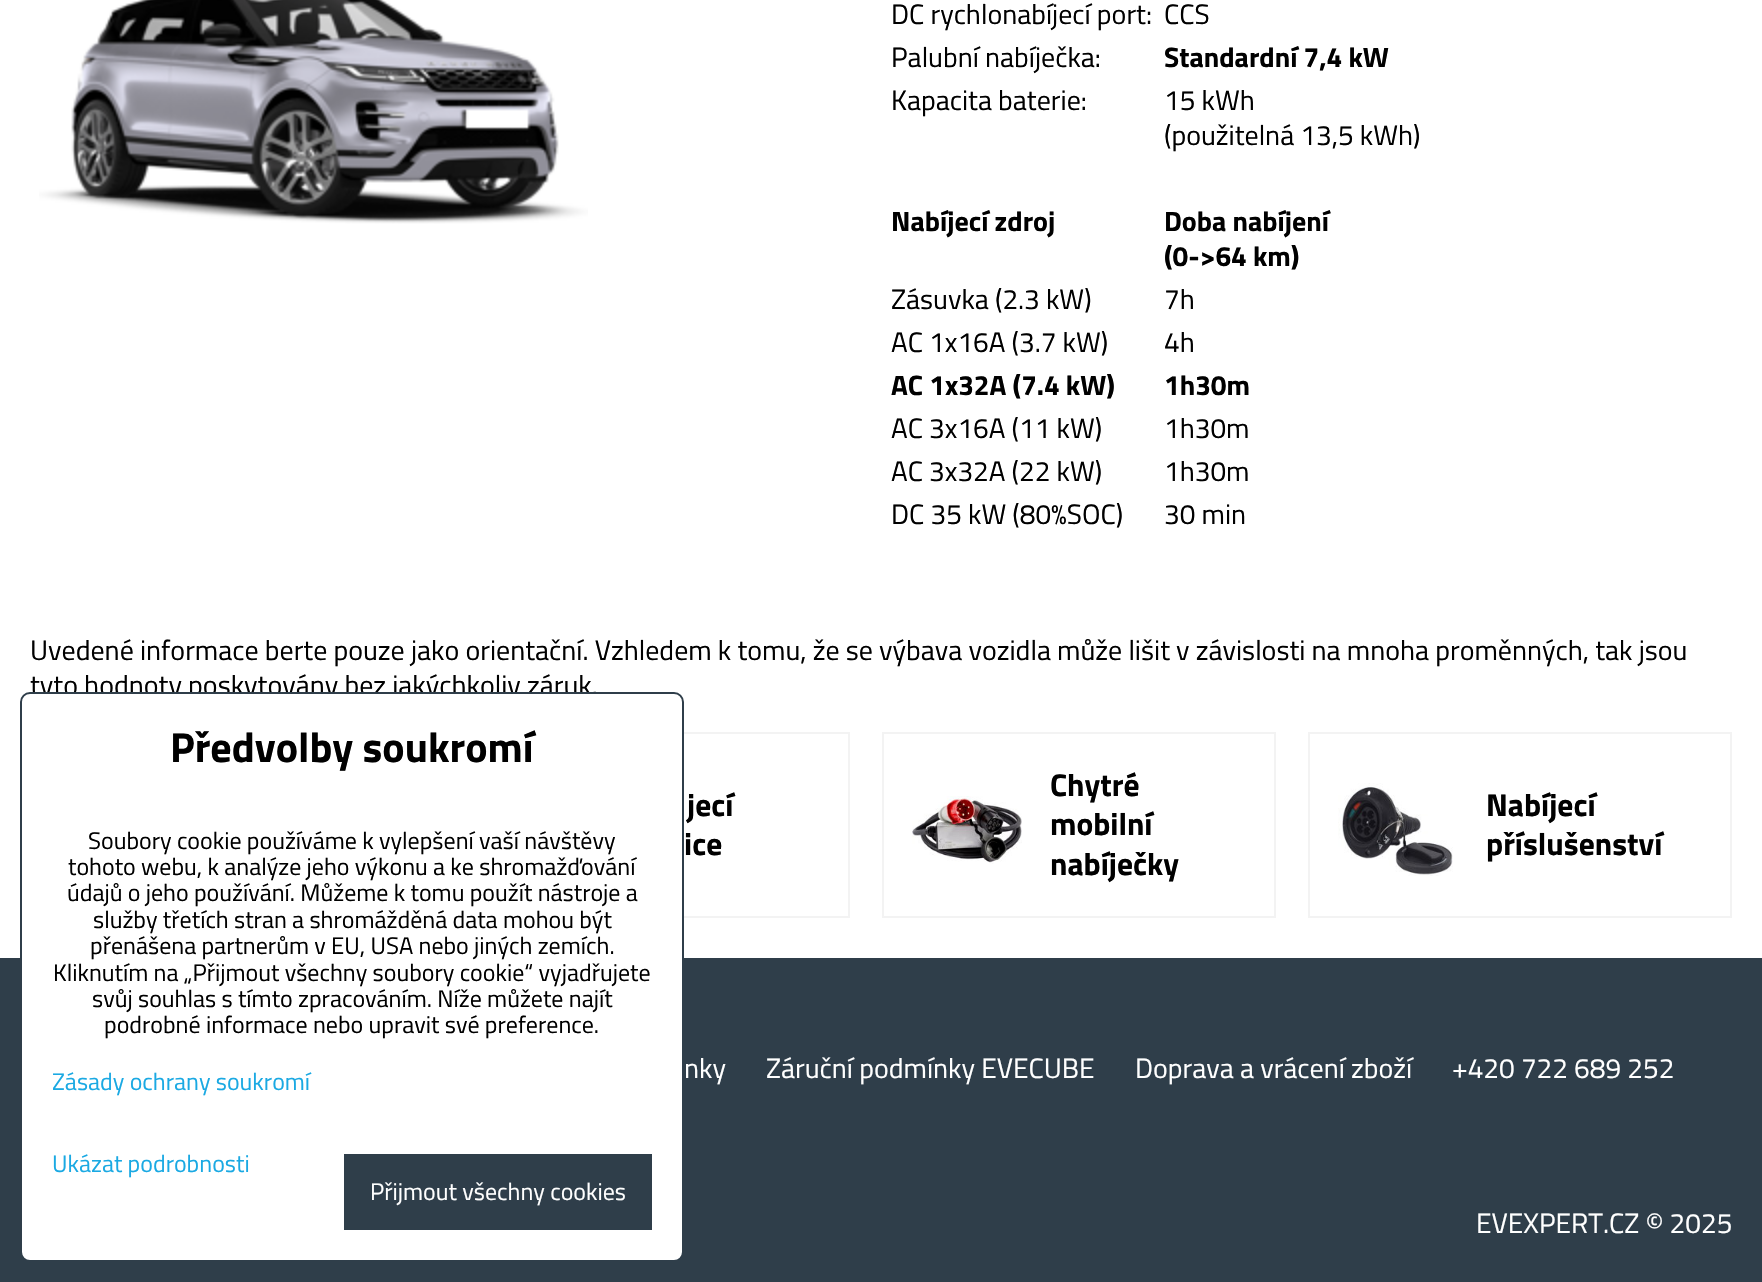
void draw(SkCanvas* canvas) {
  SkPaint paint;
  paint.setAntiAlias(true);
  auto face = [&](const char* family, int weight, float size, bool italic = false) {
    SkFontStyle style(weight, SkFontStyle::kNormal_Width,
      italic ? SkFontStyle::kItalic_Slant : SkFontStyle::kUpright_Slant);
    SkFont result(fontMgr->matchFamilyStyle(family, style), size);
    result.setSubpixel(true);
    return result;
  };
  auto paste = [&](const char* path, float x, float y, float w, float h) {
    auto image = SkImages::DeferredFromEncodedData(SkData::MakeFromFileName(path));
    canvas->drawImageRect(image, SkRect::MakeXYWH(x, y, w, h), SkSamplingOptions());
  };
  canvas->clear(0xffffffff);
  paste("img/1.png", 39, 0, 549, 224);
  paint.setStroke(true);
  paint.setStrokeWidth(2);
  paint.setColor(0xfff3f3f3);
  canvas->drawRect(SkRect::MakeXYWH(457, 733, 392, 184), paint);
  canvas->drawRect(SkRect::MakeXYWH(883, 733, 392, 184), paint);
  paste("img/2.png", 912, 796, 110, 68);
  canvas->drawRect(SkRect::MakeXYWH(1309, 733, 422, 184), paint);
  paste("img/3.png", 1338, 783, 115, 93);
  paint.setStroke(false);
  paint.setColor(0xff2f3e4a);
  canvas->drawRect(SkRect::MakeXYWH(0, 958, 1762, 324), paint);
  auto f0 = face("Titillium Web", 400, 28);
  paint.setColor(0xff000000);
  {
    const struct { const char* s; float x, y; } items[] = {
      {"DC rychlonabíjecí port:", 891, 24},
      {"CCS", 1164, 24},
      {"Palubní nabíječka:", 891, 67},
    };
    for (auto [s, x, y] : items) {
      canvas->drawString(s, x, y, f0, paint);
    }
  }
  auto f1 = face("Titillium Web", 700, 28);
  canvas->drawString("Standardní 7,4 kW", 1164, 67, f1, paint);
  {
    const struct { const char* s; float x, y; } items[] = {
      {"Kapacita baterie:", 891, 110},
      {"15 kWh", 1164, 110},
      {"(použitelná 13,5 kWh)", 1164, 145},
    };
    for (auto [s, x, y] : items) {
      canvas->drawString(s, x, y, f0, paint);
    }
  }
  {
    const struct { const char* s; float x, y; } items[] = {
      {"Nabíjecí zdroj", 891, 231},
      {"Doba nabíjení", 1164, 231},
      {"(0->64 km)", 1164, 266},
    };
    for (auto [s, x, y] : items) {
      canvas->drawString(s, x, y, f1, paint);
    }
  }
  {
    const struct { const char* s; float x, y; } items[] = {
      {"Zásuvka (2.3 kW)", 891, 309},
      {"7h", 1164, 309},
      {"AC 1x16A (3.7 kW)", 891, 352},
      {"4h", 1164, 352},
    };
    for (auto [s, x, y] : items) {
      canvas->drawString(s, x, y, f0, paint);
    }
  }
  canvas->drawString("AC 1x32A (7.4 kW)", 891, 395, f1, paint);
  canvas->drawString("1h30m", 1164, 395, f1, paint);
  {
    const struct { const char* s; float x, y; } items[] = {
      {"AC 3x16A (11 kW)", 891, 438},
      {"1h30m", 1164, 438},
      {"AC 3x32A (22 kW)", 891, 481},
      {"1h30m", 1164, 481},
      {"DC 35 kW (80%SOC)", 891, 524},
      {"30 min", 1164, 524},
      {"Uvedené informace berte pouze jako orientační. Vzhledem k tomu, že se výbava vozidla může lišit v závislosti na mnoha proměnných, tak jsou", 30, 660},
      {"tyto hodnoty poskytovány bez jakýchkoliv záruk.", 30, 695},
    };
    for (auto [s, x, y] : items) {
      canvas->drawString(s, x, y, f0, paint);
    }
  }
  auto f2 = face("Titillium Web", 700, 31.5f);
  {
    const struct { const char* s; float x, y; } items[] = {
      {"jecí", 687, 816},
      {"ice", 684, 855},
      {"Chytré", 1050, 796},
      {"mobilní", 1050, 835},
      {"nabíječky", 1050, 875},
      {"Nabíjecí", 1486, 816},
      {"příslušenství", 1486, 855},
    };
    for (auto [s, x, y] : items) {
      canvas->drawString(s, x, y, f2, paint);
    }
  }
  paint.setColor(0xffffffff);
  {
    const struct { const char* s; float x, y; } items[] = {
      {"nky", 684, 1078},
      {"Záruční podmínky EVECUBE", 766, 1078},
      {"Doprava a vrácení zboží", 1135, 1078},
      {"+420 722 689 252", 1452, 1078},
      {"EVEXPERT.CZ © 2025", 1476, 1233},
    };
    for (auto [s, x, y] : items) {
      canvas->drawString(s, x, y, f0, paint);
    }
  }
  canvas->drawRoundRect(SkRect::MakeXYWH(21, 693, 662, 568), 9, 9, paint);
  paint.setStroke(true);
  paint.setColor(0xff2f3e4a);
  canvas->drawRoundRect(SkRect::MakeXYWH(21, 693, 662, 568), 9, 9, paint);
  auto f3 = face("Titillium Web", 700, 42);
  paint.setStroke(false);
  paint.setColor(0xff000000);
  canvas->drawString("Předvolby soukromí", 170, 762, f3, paint);
  auto f4 = face("Titillium Web", 400, 24);
  {
    const struct { const char* s; float x, y; } items[] = {
      {"Soubory cookie používáme k vylepšení vaší návštěvy", 88, 849},
      {"tohoto webu, k analýze jeho výkonu a ke shromažďování", 68, 875},
      {"údajů o jeho používání. Můžeme k tomu použít nástroje a", 67, 901},
      {"služby třetích stran a shromážděná data mohou být", 93, 928},
      {"přenášena partnerům v EU, USA nebo jiných zemích.", 90, 954},
      {"Kliknutím na „Přijmout všechny soubory cookie“ vyjadřujete", 53, 981},
      {"svůj souhlas s tímto zpracováním. Níže můžete najít", 92, 1007},
      {"podrobné informace nebo upravit své preference.", 104, 1033},
    };
    for (auto [s, x, y] : items) {
      canvas->drawString(s, x, y, f4, paint);
    }
  }
  paint.setColor(0xff1aa9e3);
  canvas->drawString("Zásady ochrany soukromí", 52, 1090, f4, paint);
  canvas->drawString("Ukázat podrobnosti", 52, 1172, f4, paint);
  paint.setColor(0xff2f3e4a);
  canvas->drawRect(SkRect::MakeXYWH(344, 1154, 308, 76), paint);
  paint.setColor(0xffffffff);
  canvas->drawString("Přijmout všechny cookies", 370, 1200, f4, paint);
}
